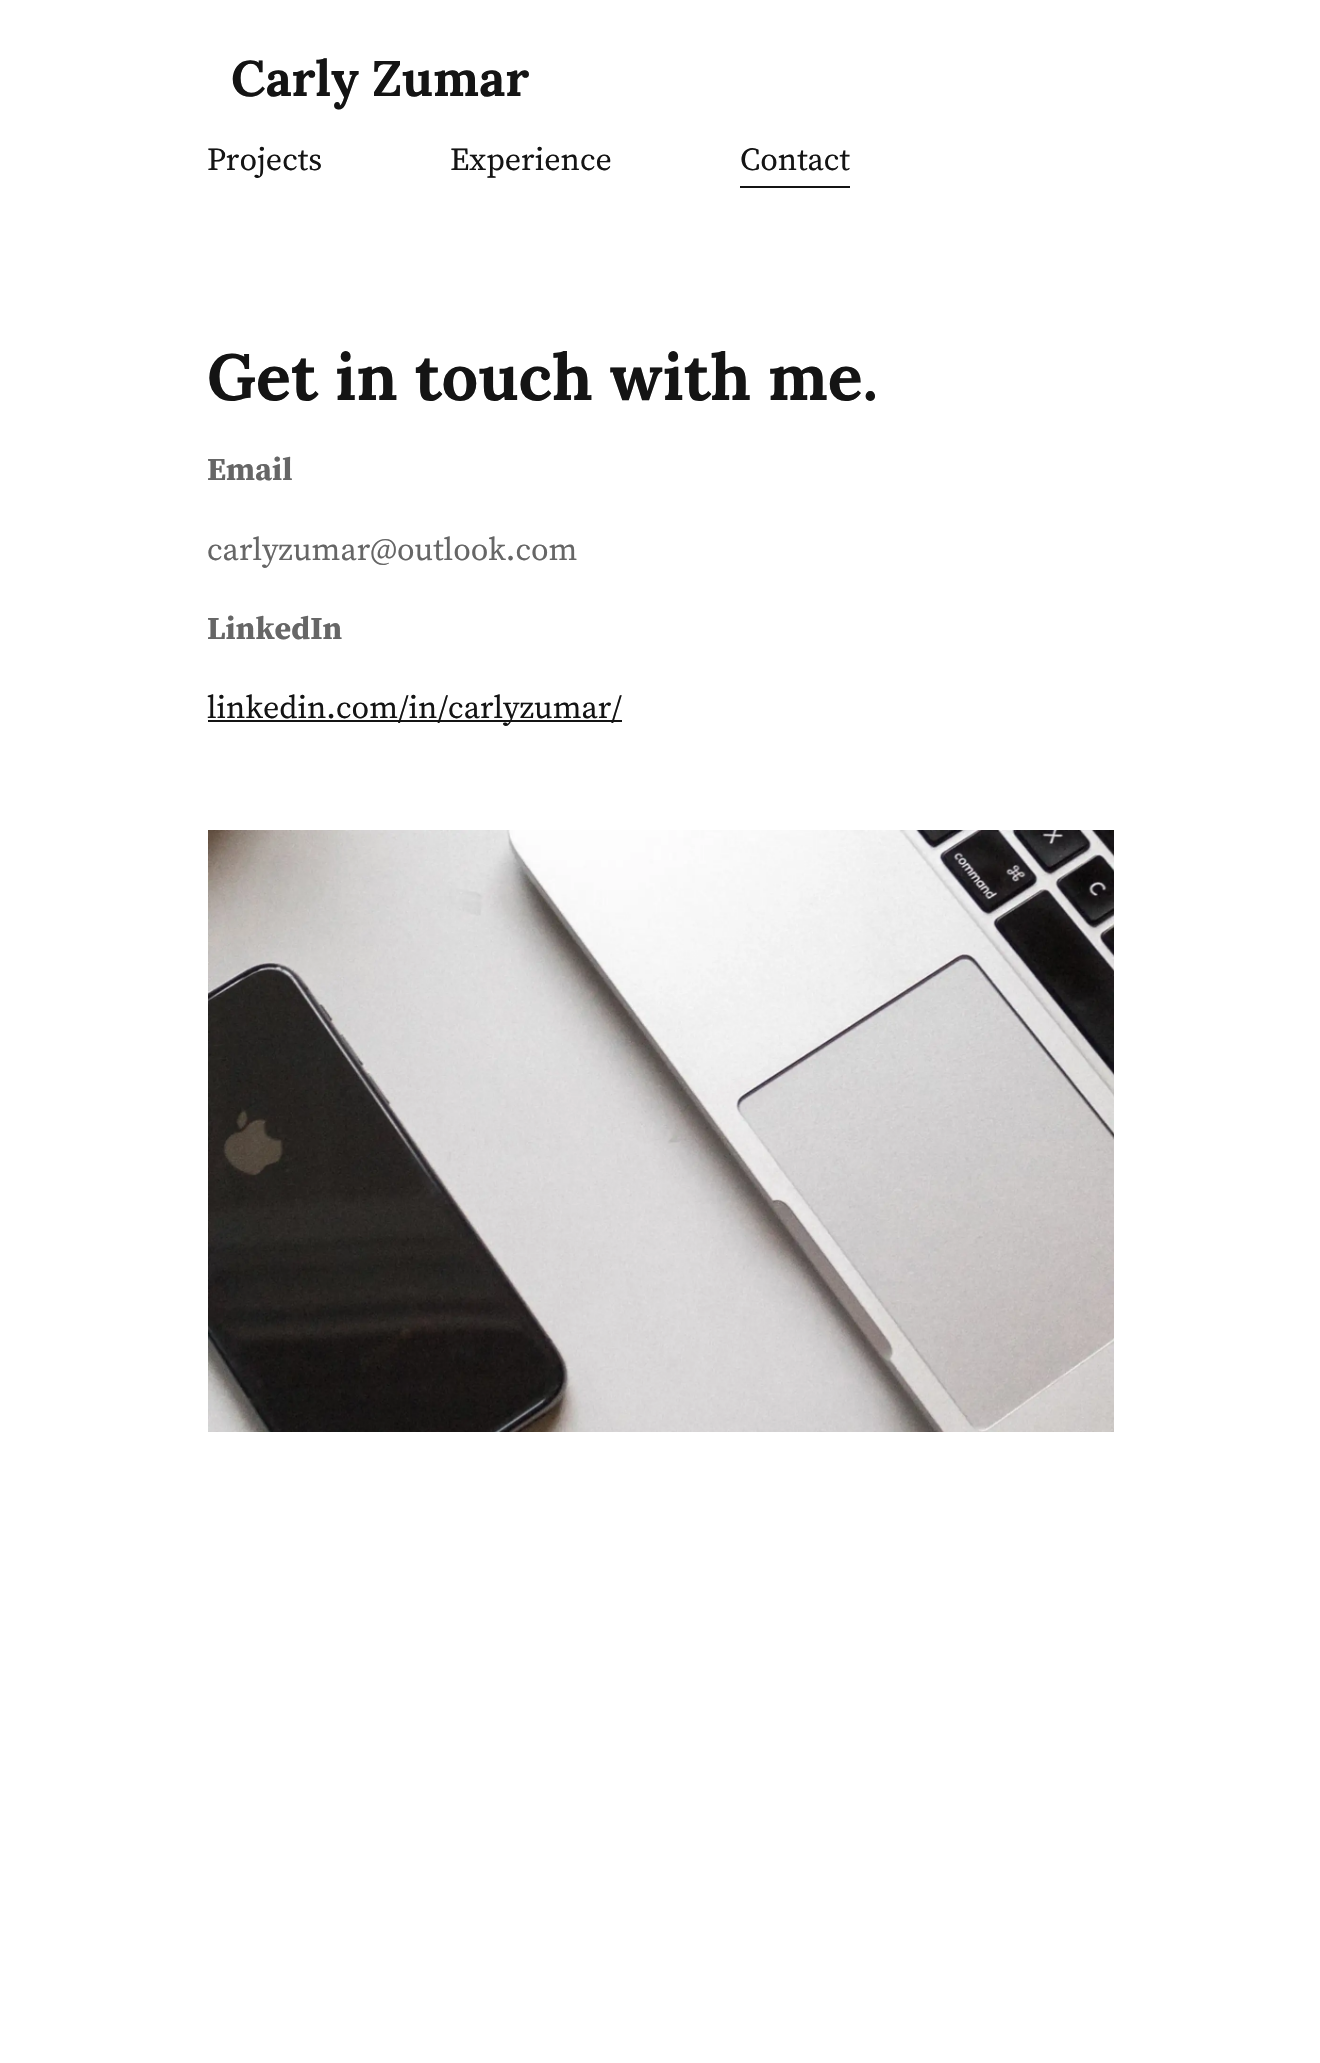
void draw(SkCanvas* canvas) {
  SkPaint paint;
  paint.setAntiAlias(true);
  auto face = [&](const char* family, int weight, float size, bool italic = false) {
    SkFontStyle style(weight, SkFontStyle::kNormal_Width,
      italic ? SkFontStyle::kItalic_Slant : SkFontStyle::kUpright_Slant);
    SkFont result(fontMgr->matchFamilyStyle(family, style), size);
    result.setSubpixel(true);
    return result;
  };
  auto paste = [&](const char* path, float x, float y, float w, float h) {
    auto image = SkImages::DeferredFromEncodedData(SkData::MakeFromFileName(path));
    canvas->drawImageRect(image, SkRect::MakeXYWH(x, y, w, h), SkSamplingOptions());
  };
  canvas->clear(0xffffffff);
  paint.setColor(0xff141414);
  canvas->drawRect(SkRect::MakeXYWH(740, 186, 110, 2), paint);
  canvas->drawRect(SkRect::MakeXYWH(208, 720, 414, 2), paint);
  paste("img/1.png", 208, 830, 906, 602);
  auto f0 = face("Lora", 700, 50);
  canvas->drawString("Carly Zumar", 231, 96, f0, paint);
  auto f1 = face("Source Serif Pro", 400, 32);
  {
    const struct { const char* s; float x, y; } items[] = {
      {"Projects", 207, 170},
      {"Experience", 450, 170},
      {"Contact", 740, 170},
    };
    for (auto [s, x, y] : items) {
      canvas->drawString(s, x, y, f1, paint);
    }
  }
  auto f2 = face("Lora", 700, 65);
  canvas->drawString("Get in touch with me.", 207, 400, f2, paint);
  auto f3 = face("Source Serif Pro", 700, 32);
  paint.setColor(0xff666666);
  canvas->drawString("Email", 207, 480, f3, paint);
  canvas->drawString("carlyzumar@outlook.com", 207, 560, f1, paint);
  canvas->drawString("LinkedIn", 207, 639, f3, paint);
  paint.setColor(0xff141414);
  canvas->drawString("linkedin.com/in/carlyzumar/", 207, 718, f1, paint);
}
